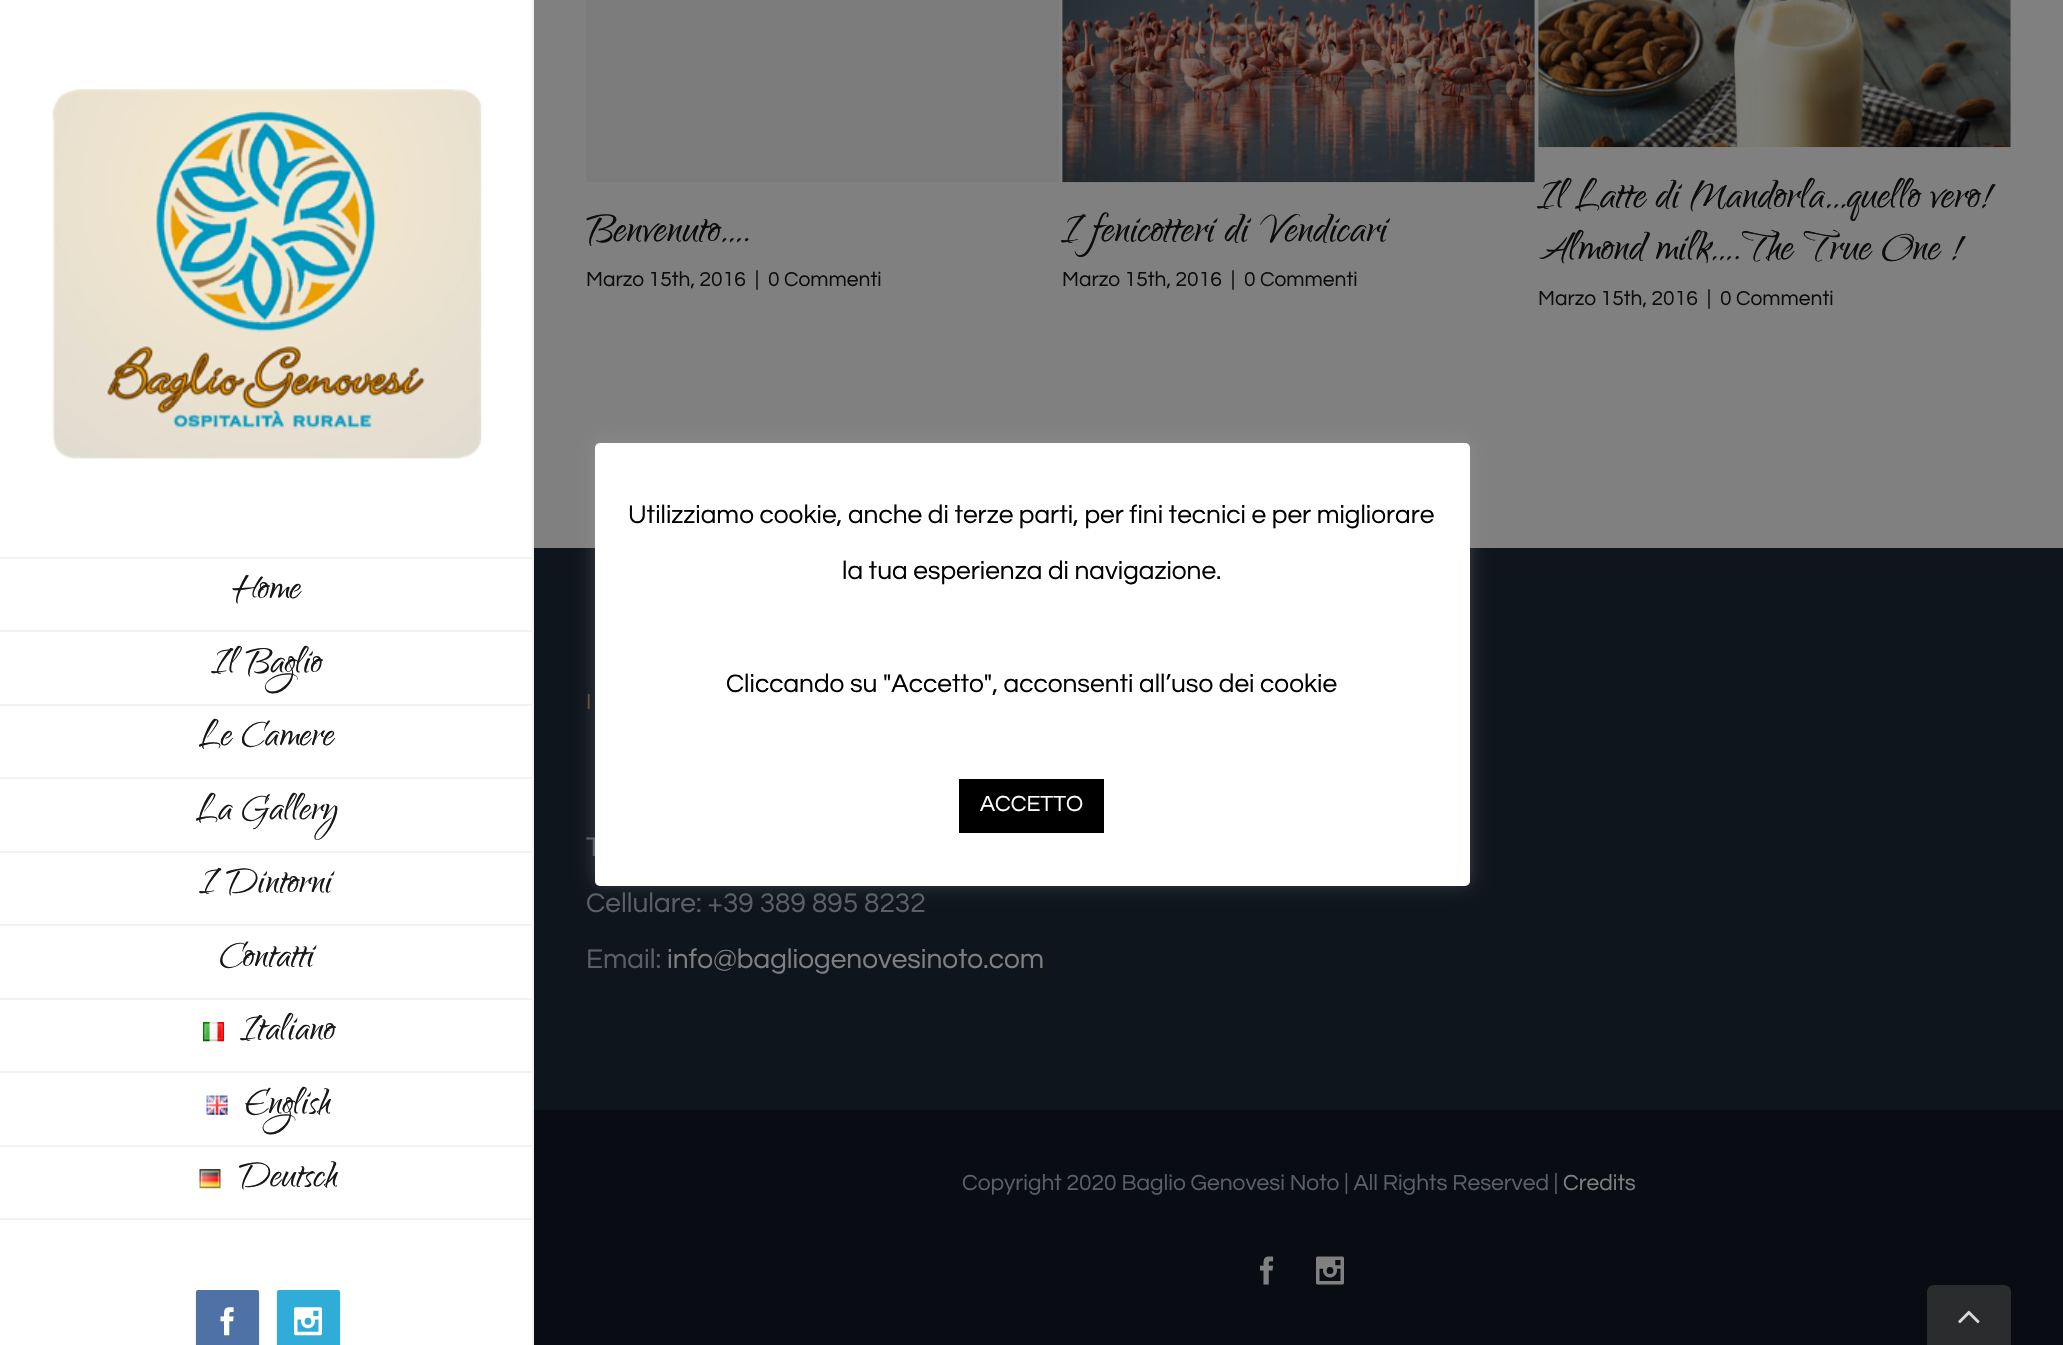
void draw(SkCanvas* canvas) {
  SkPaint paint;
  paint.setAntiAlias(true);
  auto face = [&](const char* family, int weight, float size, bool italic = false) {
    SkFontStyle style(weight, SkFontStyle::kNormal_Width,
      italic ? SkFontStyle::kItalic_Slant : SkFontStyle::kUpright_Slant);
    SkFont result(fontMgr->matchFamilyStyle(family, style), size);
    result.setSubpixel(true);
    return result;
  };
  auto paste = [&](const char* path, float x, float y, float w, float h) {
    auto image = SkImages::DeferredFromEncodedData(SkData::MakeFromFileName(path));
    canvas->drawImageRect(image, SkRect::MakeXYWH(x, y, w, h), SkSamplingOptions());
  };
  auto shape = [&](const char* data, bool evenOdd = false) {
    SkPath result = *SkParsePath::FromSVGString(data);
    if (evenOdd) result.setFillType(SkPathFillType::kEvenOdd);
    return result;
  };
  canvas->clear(0xff808080);
  paint.setColor(0xff7b7b7b);
  canvas->drawRect(SkRect::MakeXYWH(586, 0, 473, 182), paint);
  paste("img/1.png", 1062, 0, 473, 183);
  paste("img/2.png", 1538, 0, 473, 148);
  paint.setColor(0xffffffff);
  canvas->drawRect(SkRect::MakeXYWH(0, 0, 532, 1345), paint);
  paste("img/3.png", 52, 89, 430, 370);
  {
    const struct { float x, y, w, h; SkColor color; } items[] = {
      {532, 0, 2, 1345, 0xfff2f2f2},
      {0, 557, 534, 2, 0xfff2f2f2},
      {0, 630, 534, 2, 0xfff2f2f2},
      {0, 704, 534, 2, 0xfff2f2f2},
      {0, 777, 534, 2, 0xfff2f2f2},
      {0, 851, 534, 2, 0xfff2f2f2},
      {0, 924, 534, 2, 0xfff2f2f2},
      {0, 998, 534, 2, 0xfff2f2f2},
      {0, 1071, 534, 2, 0xfff2f2f2},
    };
    for (auto [x, y, w, h, color] : items) {
      paint.setColor(color);
      canvas->drawRect(SkRect::MakeXYWH(x, y, w, h), paint);
    }
  }
  paste("img/4.png", 203, 1022, 21, 20);
  canvas->drawRect(SkRect::MakeXYWH(0, 1145, 534, 2), paint);
  paste("img/5.png", 206, 1095, 22, 20);
  canvas->drawRect(SkRect::MakeXYWH(0, 1218, 534, 2), paint);
  paste("img/6.png", 199, 1169, 22, 20);
  paint.setColor(0x33000000);
  paint.setMaskFilter(SkMaskFilter::MakeBlur(kNormal_SkBlurStyle, 1));
  canvas->drawRoundRect(SkRect::MakeXYWH(196, 1292, 63, 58), 2, 2, paint);
  paint.setMaskFilter(nullptr);
  paint.setColor(0xff4e72a6);
  canvas->drawRoundRect(SkRect::MakeXYWH(197, 1291, 61, 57), 1, 1, paint);
  paint.setStroke(true);
  paint.setStrokeWidth(2);
  canvas->drawRoundRect(SkRect::MakeXYWH(197, 1291, 61, 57), 1, 1, paint);
  paste("img/7.png", 220, 1307, 14, 29);
  paint.setStroke(false);
  paint.setColor(0x33000000);
  paint.setMaskFilter(SkMaskFilter::MakeBlur(kNormal_SkBlurStyle, 1));
  canvas->drawRoundRect(SkRect::MakeXYWH(277, 1292, 63, 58), 2, 2, paint);
  paint.setMaskFilter(nullptr);
  paint.setColor(0xff2facd8);
  canvas->drawRoundRect(SkRect::MakeXYWH(278, 1291, 61, 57), 1, 1, paint);
  paint.setStroke(true);
  canvas->drawRoundRect(SkRect::MakeXYWH(278, 1291, 61, 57), 1, 1, paint);
  paste("img/8.png", 294, 1307, 28, 29);
  paint.setStroke(false);
  paint.setColor(0xff0f151d);
  canvas->drawRect(SkRect::MakeXYWH(534, 548, 1529, 562), paint);
  paint.setColor(0xff090d13);
  canvas->drawRect(SkRect::MakeXYWH(534, 1110, 1529, 235), paint);
  paste("img/9.png", 1260, 1256, 14, 29);
  paste("img/10.png", 1316, 1256, 28, 29);
  paint.setColor(0x4dacabab);
  paint.setMaskFilter(SkMaskFilter::MakeBlur(kNormal_SkBlurStyle, 9));
  canvas->drawRoundRect(SkRect::MakeXYWH(595, 441, 875, 443), 5, 5, paint);
  paint.setMaskFilter(nullptr);
  paint.setColor(0xff2b2c2d);
  canvas->drawPath(shape("M1934 1285H2004C2008 1285 2011 1288 2011 1292V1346H1927V1292C1927 1288 1930 1285 1934 1285Z"), paint);
  paste("img/11.png", 1958, 1310, 22, 14);
  auto f0 = face("Qwigley", 400, 52.5f);
  paint.setColor(0xff0c0c0c);
  canvas->drawString("Benvenuto….", 586, 241, f0, paint);
  auto f1 = face("Questrial", 400, 21);
  {
    const struct { const char* s; float x, y; } items[] = {
      {"Marzo 15th, 2016", 586, 286},
      {"|", 755, 286},
      {"0 Commenti", 768, 286},
    };
    for (auto [s, x, y] : items) {
      canvas->drawString(s, x, y, f1, paint);
    }
  }
  canvas->drawString("I fenicotteri di Vendicari", 1062, 241, f0, paint);
  {
    const struct { const char* s; float x, y; } items[] = {
      {"Marzo 15th, 2016", 1062, 286},
      {"|", 1231, 286},
      {"0 Commenti", 1244, 286},
    };
    for (auto [s, x, y] : items) {
      canvas->drawString(s, x, y, f1, paint);
    }
  }
  canvas->drawString("Il Latte di Mandorla…quello vero!", 1538, 207, f0, paint);
  canvas->drawString("Almond milk….The True One !", 1538, 259, f0, paint);
  {
    const struct { const char* s; float x, y; } items[] = {
      {"Marzo 15th, 2016", 1538, 305},
      {"|", 1707, 305},
      {"0 Commenti", 1720, 305},
    };
    for (auto [s, x, y] : items) {
      canvas->drawString(s, x, y, f1, paint);
    }
  }
  auto f2 = face("Qwigley", 400, 47);
  paint.setColor(0xff171717);
  {
    const struct { const char* s; float x, y; } items[] = {
      {"Home", 232, 598},
      {"Il Baglio", 212, 672},
      {"Le Camere", 199, 745},
      {"La Gallery", 196, 819},
      {"I Dintorni", 200, 892},
      {"Contatti", 219, 966},
      {"Italiano", 241, 1039},
      {"English", 245, 1113},
      {"Deutsch", 238, 1186},
    };
    for (auto [s, x, y] : items) {
      canvas->drawString(s, x, y, f2, paint);
    }
  }
  auto f3 = face("Questrial", 400, 22.75f);
  paint.setColor(0xff66552e);
  canvas->drawString("I", 586, 709, f3, paint);
  auto f4 = face("Questrial", 400, 28);
  paint.setColor(0xff5b6067);
  {
    const struct { const char* s; float x, y; } items[] = {
      {"T", 586, 856},
      {"Cellulare: +39 389 895 8232", 586, 912},
      {"Email:", 586, 968},
    };
    for (auto [s, x, y] : items) {
      canvas->drawString(s, x, y, f4, paint);
    }
  }
  paint.setColor(0xff808080);
  canvas->drawString("info@bagliogenovesinoto.com", 667, 968, f4, paint);
  paint.setColor(0xff5b6067);
  canvas->drawString("Copyright 2020 Baglio Genovesi Noto | All Rights Reserved |", 962, 1190, f3, paint);
  paint.setColor(0xff808080);
  canvas->drawString("Credits", 1563, 1190, f3, paint);
  paint.setColor(0xffffffff);
  canvas->drawRoundRect(SkRect::MakeXYWH(595, 443, 875, 443), 5, 5, paint);
  auto f5 = face("Questrial", 400, 26.25f);
  paint.setColor(0xff000000);
  {
    const struct { const char* s; float x, y; } items[] = {
      {"Utilizziamo cookie, anche di terze parti, per fini tecnici e per migliorare", 628, 523},
      {"la tua esperienza di navigazione.", 842, 579},
      {"Cliccando su \"Accetto\", acconsenti all’uso dei cookie", 726, 692},
    };
    for (auto [s, x, y] : items) {
      canvas->drawString(s, x, y, f5, paint);
    }
  }
  canvas->drawRect(SkRect::MakeXYWH(959, 779, 145, 54), paint);
  paint.setColor(0xffffffff);
  canvas->drawString("ACCETTO", 980, 811, f3, paint);
}
